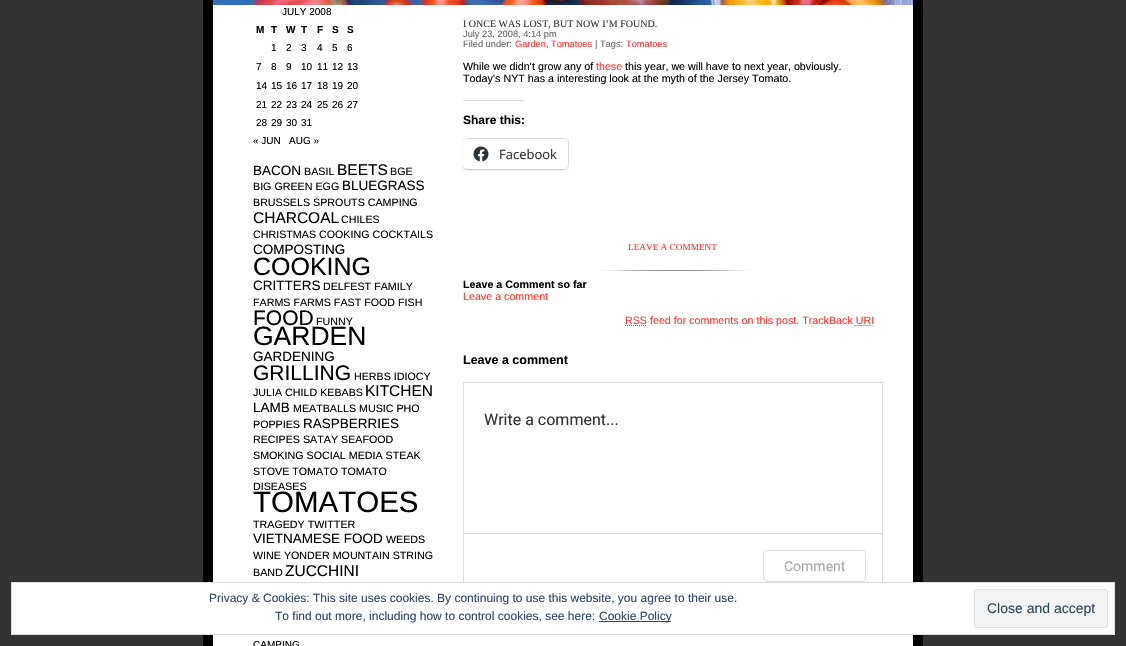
void draw(SkCanvas* canvas) {
  SkPaint paint;
  paint.setAntiAlias(true);
  auto face = [&](const char* family, int weight, float size, bool italic = false) {
    SkFontStyle style(weight, SkFontStyle::kNormal_Width,
      italic ? SkFontStyle::kItalic_Slant : SkFontStyle::kUpright_Slant);
    SkFont result(fontMgr->matchFamilyStyle(family, style), size);
    result.setSubpixel(true);
    return result;
  };
  auto paste = [&](const char* path, float x, float y, float w, float h) {
    auto image = SkImages::DeferredFromEncodedData(SkData::MakeFromFileName(path));
    canvas->drawImageRect(image, SkRect::MakeXYWH(x, y, w, h), SkSamplingOptions());
  };
  auto shape = [&](const char* data, bool evenOdd = false) {
    SkPath result = *SkParsePath::FromSVGString(data);
    if (evenOdd) result.setFillType(SkPathFillType::kEvenOdd);
    return result;
  };
  canvas->clear(0xff333333);
  paint.setColor(0xff000000);
  canvas->drawRect(SkRect::MakeXYWH(203, 0, 720, 646), paint);
  paste("img/1.png", 213, 0, 700, 5);
  paint.setColor(0xffffffff);
  canvas->drawRect(SkRect::MakeXYWH(213, 5, 700, 641), paint);
  paint.setColor(0xffdcdcde);
  canvas->drawRect(SkRect::MakeXYWH(463, 100, 62, 1), paint);
  canvas->save();
  canvas->clipRect(SkRect::MakeXYWH(463, 17, 420, 582));
  paint.setStroke(true);
  paint.setStrokeWidth(1);
  paint.setColor(0xffe0e0e0);
  canvas->drawRoundRect(SkRect::MakeXYWH(462.5f, 138.5f, 106, 31), 4.5f, 4.5f, paint);
  canvas->restore();
  paint.setStroke(false);
  paint.setColor(0x1f000000);
  paint.setMaskFilter(SkMaskFilter::MakeBlur(kNormal_SkBlurStyle, 1));
  canvas->drawRoundRect(SkRect::MakeXYWH(463, 140, 105, 30), 4, 4, paint);
  paint.setMaskFilter(nullptr);
  paint.setColor(0xffffffff);
  canvas->drawRoundRect(SkRect::MakeXYWH(463, 139, 105, 30), 4, 4, paint);
  paste("img/2.png", 473, 146, 16, 16);
  paste("img/3.png", 599, 270, 154, 1);
  paint.setStroke(true);
  paint.setColor(0xffff3333);
  paint.setPathEffect(SkDashPathEffect::Make({{1, 1}}, 0));
  canvas->drawPath(shape("M625 325.5H646.5"), paint);
  paint.setPathEffect(nullptr);
  paint.setPathEffect(SkDashPathEffect::Make({{1, 1}}, 0));
  canvas->drawPath(shape("M854.5 325.5H873"), paint);
  paint.setPathEffect(nullptr);
  paint.setColor(0xffdcdcde);
  canvas->drawRect(SkRect::MakeXYWH(463.5f, 382.5f, 419, 216), paint);
  paint.setStroke(false);
  canvas->drawRect(SkRect::MakeXYWH(464, 533, 418, 1), paint);
  paint.setStroke(true);
  canvas->drawRoundRect(SkRect::MakeXYWH(763.5f, 550.5f, 102, 31), 3.5f, 3.5f, paint);
  paint.setStroke(false);
  paint.setColor(0xffffffff);
  canvas->drawRect(SkRect::MakeXYWH(11.5f, 582.5f, 1103, 52), paint);
  paint.setStroke(true);
  paint.setColor(0xffdedede);
  canvas->drawRect(SkRect::MakeXYWH(11.5f, 582.5f, 1103, 52), paint);
  paint.setStroke(false);
  paint.setColor(0xff2e4467);
  canvas->drawRect(SkRect::MakeXYWH(599, 621, 72, 1), paint);
  paint.setColor(0xfff3f3f3);
  canvas->drawRoundRect(SkRect::MakeXYWH(974.5f, 589.5f, 133, 38), 2.5f, 2.5f, paint);
  paint.setStroke(true);
  paint.setColor(0xffdedede);
  canvas->drawRoundRect(SkRect::MakeXYWH(974.5f, 589.5f, 133, 38), 2.5f, 2.5f, paint);
  auto f0 = face("Liberation Sans", 400, 10);
  paint.setStroke(false);
  paint.setColor(0xff000000);
  canvas->drawString("JULY 2008", 282, 15, f0, paint);
  auto f1 = face("Liberation Sans", 700, 10);
  {
    const struct { const char* s; float x, y; } items[] = {
      {"M", 256, 33},
      {"T", 271, 33},
      {"W", 286, 33},
      {"T", 301, 33},
      {"F", 317, 33},
      {"S", 332, 33},
      {"S", 347, 33},
    };
    for (auto [s, x, y] : items) {
      canvas->drawString(s, x, y, f1, paint);
    }
  }
  {
    const struct { const char* s; float x, y; } items[] = {
      {"1", 271, 51},
      {"2", 286, 51},
      {"3", 301, 51},
      {"4", 317, 51},
      {"5", 332, 51},
      {"6", 347, 51},
      {"7", 256, 70},
      {"8", 271, 70},
      {"9", 286, 70},
      {"10", 301, 70},
      {"11", 317, 70},
      {"12", 332, 70},
      {"13", 347, 70},
      {"14", 256, 89},
      {"15", 271, 89},
      {"16", 286, 89},
      {"17", 301, 89},
      {"18", 317, 89},
      {"19", 332, 89},
      {"20", 347, 89},
      {"21", 256, 108},
      {"22", 271, 108},
      {"23", 286, 108},
      {"24", 301, 108},
      {"25", 317, 108},
      {"26", 332, 108},
      {"27", 347, 108},
      {"28", 256, 126},
      {"29", 271, 126},
      {"30", 286, 126},
      {"31", 301, 126},
      {"« JUN", 253, 144},
      {"AUG »", 289, 144},
    };
    for (auto [s, x, y] : items) {
      canvas->drawString(s, x, y, f0, paint);
    }
  }
  auto f2 = face("Liberation Sans", 400, 13.5f);
  canvas->drawString("BACON", 253, 175, f2, paint);
  auto f3 = face("Liberation Sans", 400, 10.7f);
  canvas->drawString("BASIL", 304, 175, f3, paint);
  auto f4 = face("Liberation Sans", 400, 15.5f);
  canvas->drawString("BEETS", 337, 175, f4, paint);
  canvas->drawString("BGE", 390, 175, f3, paint);
  canvas->drawString("BIG GREEN EGG", 253, 190, f3, paint);
  canvas->drawString("BLUEGRASS", 342, 190, f2, paint);
  canvas->drawString("BRUSSELS SPROUTS CAMPING", 253, 206, f3, paint);
  canvas->drawString("CHARCOAL", 253, 223, f4, paint);
  canvas->drawString("CHILES", 341, 223, f3, paint);
  canvas->drawString("CHRISTMAS COOKING COCKTAILS", 253, 238, f3, paint);
  canvas->drawString("COMPOSTING", 253, 254, f2, paint);
  auto f5 = face("Liberation Sans", 400, 25);
  canvas->drawString("COOKING", 253, 275, f5, paint);
  canvas->drawString("CRITTERS", 253, 290, f2, paint);
  canvas->drawString("DELFEST FAMILY", 323, 290, f3, paint);
  canvas->drawString("FARMS FARMS FAST FOOD FISH", 253, 306, f3, paint);
  auto f6 = face("Liberation Sans", 400, 21);
  canvas->drawString("FOOD", 253, 325, f6, paint);
  canvas->drawString("FUNNY", 316, 325, f3, paint);
  auto f7 = face("Liberation Sans", 400, 26.5f);
  canvas->drawString("GARDEN", 253, 345, f7, paint);
  canvas->drawString("GARDENING", 253, 361, f2, paint);
  canvas->drawString("GRILLING", 253, 380, f6, paint);
  canvas->drawString("HERBS IDIOCY", 354, 380, f3, paint);
  canvas->drawString("JULIA CHILD KEBABS", 253, 396, f3, paint);
  canvas->drawString("KITCHEN", 365, 396, f4, paint);
  canvas->drawString("LAMB", 253, 412, f2, paint);
  canvas->drawString("MEATBALLS MUSIC PHO", 293, 412, f3, paint);
  canvas->drawString("POPPIES", 253, 428, f3, paint);
  canvas->drawString("RASPBERRIES", 303, 428, f2, paint);
  {
    const struct { const char* s; float x, y; } items[] = {
      {"RECIPES SATAY SEAFOOD", 253, 443},
      {"SMOKING SOCIAL MEDIA STEAK", 253, 459},
      {"STOVE TOMATO TOMATO", 253, 475},
      {"DISEASES", 253, 490},
    };
    for (auto [s, x, y] : items) {
      canvas->drawString(s, x, y, f3, paint);
    }
  }
  auto f8 = face("Liberation Sans", 400, 29.5f);
  canvas->drawString("TOMATOES", 253, 512, f8, paint);
  canvas->drawString("TRAGEDY TWITTER", 253, 528, f3, paint);
  canvas->drawString("VIETNAMESE FOOD", 253, 543, f2, paint);
  {
    const struct { const char* s; float x, y; } items[] = {
      {"WEEDS", 386, 543},
      {"WINE YONDER MOUNTAIN STRING", 253, 559},
      {"BAND", 253, 576},
    };
    for (auto [s, x, y] : items) {
      canvas->drawString(s, x, y, f3, paint);
    }
  }
  canvas->drawString("ZUCCHINI", 285, 576, f4, paint);
  canvas->drawString("CAMPING", 253, 648, f0, paint);
  auto f9 = face("Liberation Serif", 400, 10);
  paint.setColor(0xff333333);
  canvas->drawString("I ONCE WAS LOST, BUT NOW I’M FOUND.", 463, 27, f9, paint);
  auto f10 = face("Liberation Sans", 400, 9.25f);
  paint.setColor(0xff666666);
  canvas->drawString("July 23, 2008, 4:14 pm", 463, 37, f10, paint);
  canvas->drawString("Filed under:", 463, 47, f10, paint);
  paint.setColor(0xffff3333);
  canvas->drawString("Garden", 515, 47, f10, paint);
  paint.setColor(0xff666666);
  canvas->drawString(",", 546, 47, f10, paint);
  paint.setColor(0xffff3333);
  canvas->drawString("Tomatoes", 551, 47, f10, paint);
  paint.setColor(0xff666666);
  canvas->drawString("| Tags:", 595, 47, f10, paint);
  paint.setColor(0xffff3333);
  canvas->drawString("Tomatoes", 626, 47, f10, paint);
  paint.setColor(0xff000000);
  canvas->drawString("While we didn’t grow any of", 463, 70, f3, paint);
  paint.setColor(0xffff3333);
  canvas->drawString("these", 596, 70, f3, paint);
  paint.setColor(0xff000000);
  canvas->drawString("this year, we will have to next year, obviously.", 625, 70, f3, paint);
  canvas->drawString("Today’s NYT has a interesting look at the myth of the Jersey Tomato.", 463, 82, f3, paint);
  auto f11 = face("Liberation Sans", 700, 12);
  canvas->drawString("Share this:", 463, 124, f11, paint);
  auto f12 = face("Open Sans", 400, 13);
  paint.setColor(0xff2c3338);
  canvas->drawString("Facebook", 499, 159, f12, paint);
  auto f13 = face("Liberation Serif", 400, 9.25f);
  paint.setColor(0xffff3333);
  canvas->drawString("LEAVE A COMMENT", 628, 250, f13, paint);
  auto f14 = face("Liberation Sans", 700, 10.7f);
  paint.setColor(0xff000000);
  canvas->drawString("Leave a Comment so far", 463, 288, f14, paint);
  paint.setColor(0xffff3333);
  canvas->drawString("Leave a comment", 463, 300, f3, paint);
  canvas->drawString("RSS feed for comments on this post. TrackBack URI", 625, 324, f3, paint);
  auto f15 = face("Liberation Sans", 700, 12.5f);
  paint.setColor(0xff000000);
  canvas->drawString("Leave a comment", 463, 364, f15, paint);
  auto f16 = face("Roboto", 400, 16);
  paint.setColor(0xff333333);
  canvas->drawString("Write a comment...", 484, 425, f16, paint);
  auto f17 = face("Roboto", 400, 14);
  paint.setColor(0xffa7aaad);
  canvas->drawString("Comment", 784, 571, f17, paint);
  auto f18 = face("Liberation Sans", 400, 12);
  paint.setColor(0xff2e4467);
  {
    const struct { const char* s; float x, y; } items[] = {
      {"Privacy & Cookies: This site uses cookies. By continuing to use this website, you agree to their use.", 209, 602},
      {"To find out more, including how to control cookies, see here:", 275, 620},
      {"Cookie Policy", 599, 620},
    };
    for (auto [s, x, y] : items) {
      canvas->drawString(s, x, y, f18, paint);
    }
  }
  auto f19 = face("Liberation Sans", 400, 14);
  paint.setColor(0xff2e4453);
  canvas->drawString("Close and accept", 987, 613, f19, paint);
}
